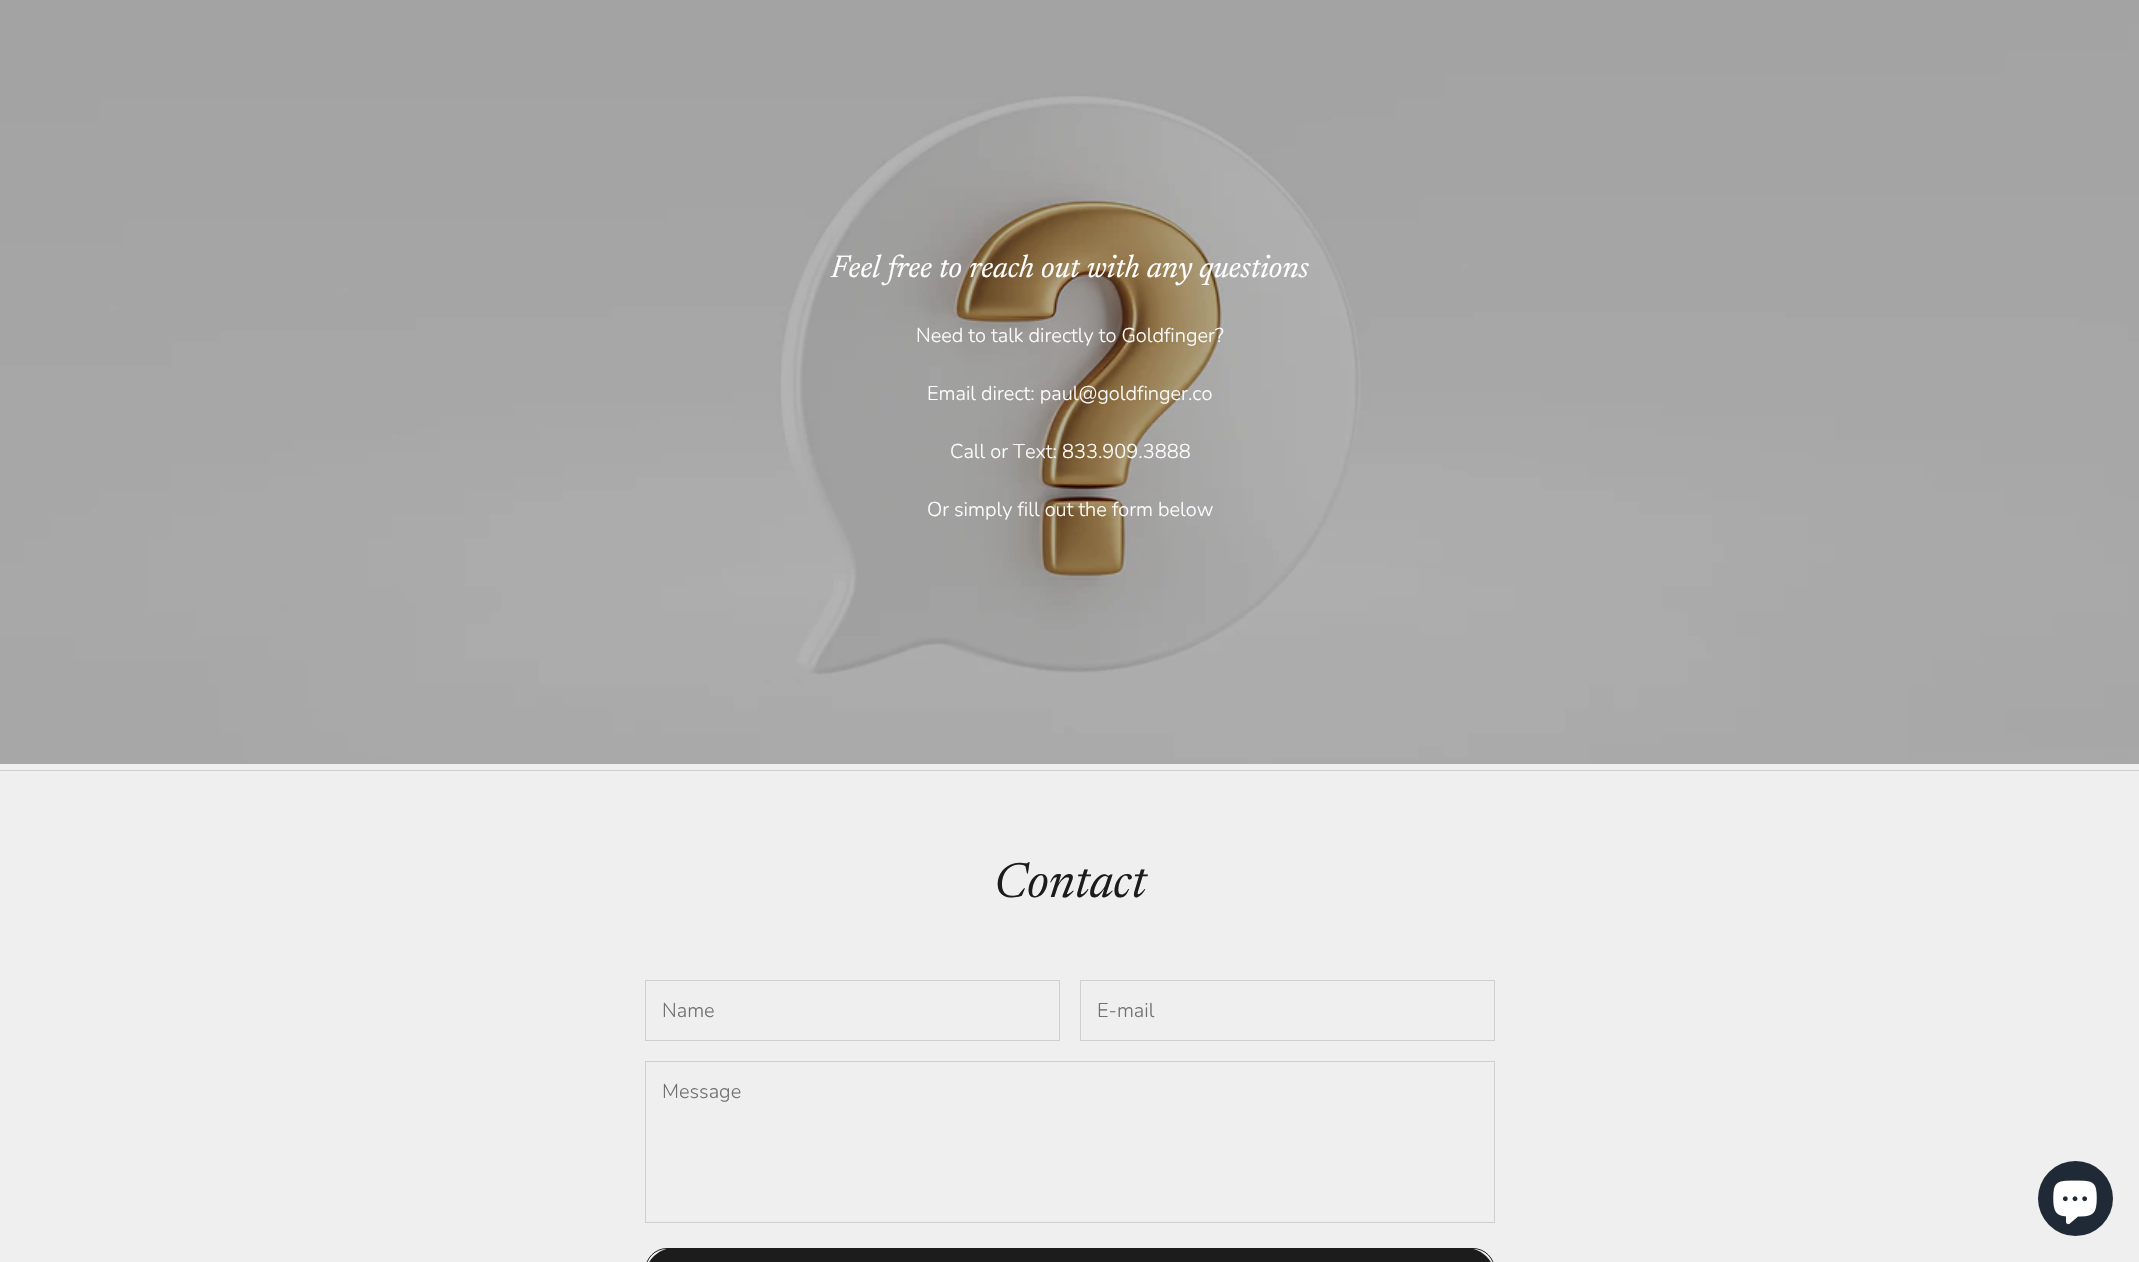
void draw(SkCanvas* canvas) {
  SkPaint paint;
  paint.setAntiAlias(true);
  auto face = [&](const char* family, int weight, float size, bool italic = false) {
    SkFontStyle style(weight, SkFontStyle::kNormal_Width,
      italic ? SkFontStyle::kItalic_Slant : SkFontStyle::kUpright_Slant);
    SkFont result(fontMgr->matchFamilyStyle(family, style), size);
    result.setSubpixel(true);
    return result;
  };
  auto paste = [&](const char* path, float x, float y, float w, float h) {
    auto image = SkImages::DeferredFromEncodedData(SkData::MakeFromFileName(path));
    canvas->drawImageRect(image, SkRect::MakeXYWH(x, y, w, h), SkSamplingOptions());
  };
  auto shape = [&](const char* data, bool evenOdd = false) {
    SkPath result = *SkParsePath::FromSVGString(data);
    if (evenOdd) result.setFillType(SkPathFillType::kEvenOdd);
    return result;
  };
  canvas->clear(0xffefefef);
  paste("img/1.png", 0, 0, 2139, 764);
  paint.setColor(0xffcfcfcf);
  canvas->drawRect(SkRect::MakeXYWH(0, 770, 2139, 1), paint);
  paint.setStroke(true);
  paint.setStrokeWidth(1);
  canvas->drawRect(SkRect::MakeXYWH(645.5f, 980.5f, 414, 60), paint);
  canvas->drawRect(SkRect::MakeXYWH(1080.5f, 980.5f, 414, 60), paint);
  canvas->drawRect(SkRect::MakeXYWH(645.5f, 1061.5f, 849, 161), paint);
  canvas->save();
  canvas->clipPath(shape("M674 1248H1466C1482 1248 1495 1261 1495 1277C1495 1293 1482 1306 1466 1306H674C658 1306 645 1293 645 1277C645 1261 658 1248 674 1248Z"), true);
  paint.setStroke(false);
  paint.setColor(0xff1c1c1c);
  canvas->drawRect(SkRect::MakeXYWH(649, 1249, 842, 13), paint);
  canvas->restore();
  paint.setStroke(true);
  canvas->drawRoundRect(SkRect::MakeXYWH(645.5f, 1248.5f, 849, 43), 28.5f, 28.5f, paint);
  paint.setStroke(false);
  paint.setColor(0xff202a36);
  canvas->drawCircle(2075.5f, 1198.5f, 37.5f, paint);
  paste("img/2.png", 2053, 1180, 44, 45);
  auto f0 = face("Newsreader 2", 400, 31.5f, true);
  paint.setColor(0xffffffff);
  canvas->drawString("Feel free to reach out with any questions", 831, 277, f0, paint);
  auto f1 = face("Nunito", 300, 20);
  {
    const struct { const char* s; float x, y; } items[] = {
      {"Need to talk directly to Goldfinger?", 916, 342},
      {"Email direct: paul@goldfinger.co", 927, 400},
      {"Call or Text: 833.909.3888", 950, 458},
      {"Or simply fill out the form below", 927, 516},
    };
    for (auto [s, x, y] : items) {
      canvas->drawString(s, x, y, f1, paint);
    }
  }
  auto f2 = face("Newsreader", 400, 49, true);
  paint.setColor(0xff1c1c1c);
  canvas->drawString("Contact", 994, 897, f2, paint);
  paint.setColor(0xff707070);
  {
    const struct { const char* s; float x, y; } items[] = {
      {"Name", 662, 1017},
      {"E-mail", 1097, 1017},
      {"Message", 662, 1098},
    };
    for (auto [s, x, y] : items) {
      canvas->drawString(s, x, y, f1, paint);
    }
  }
}
